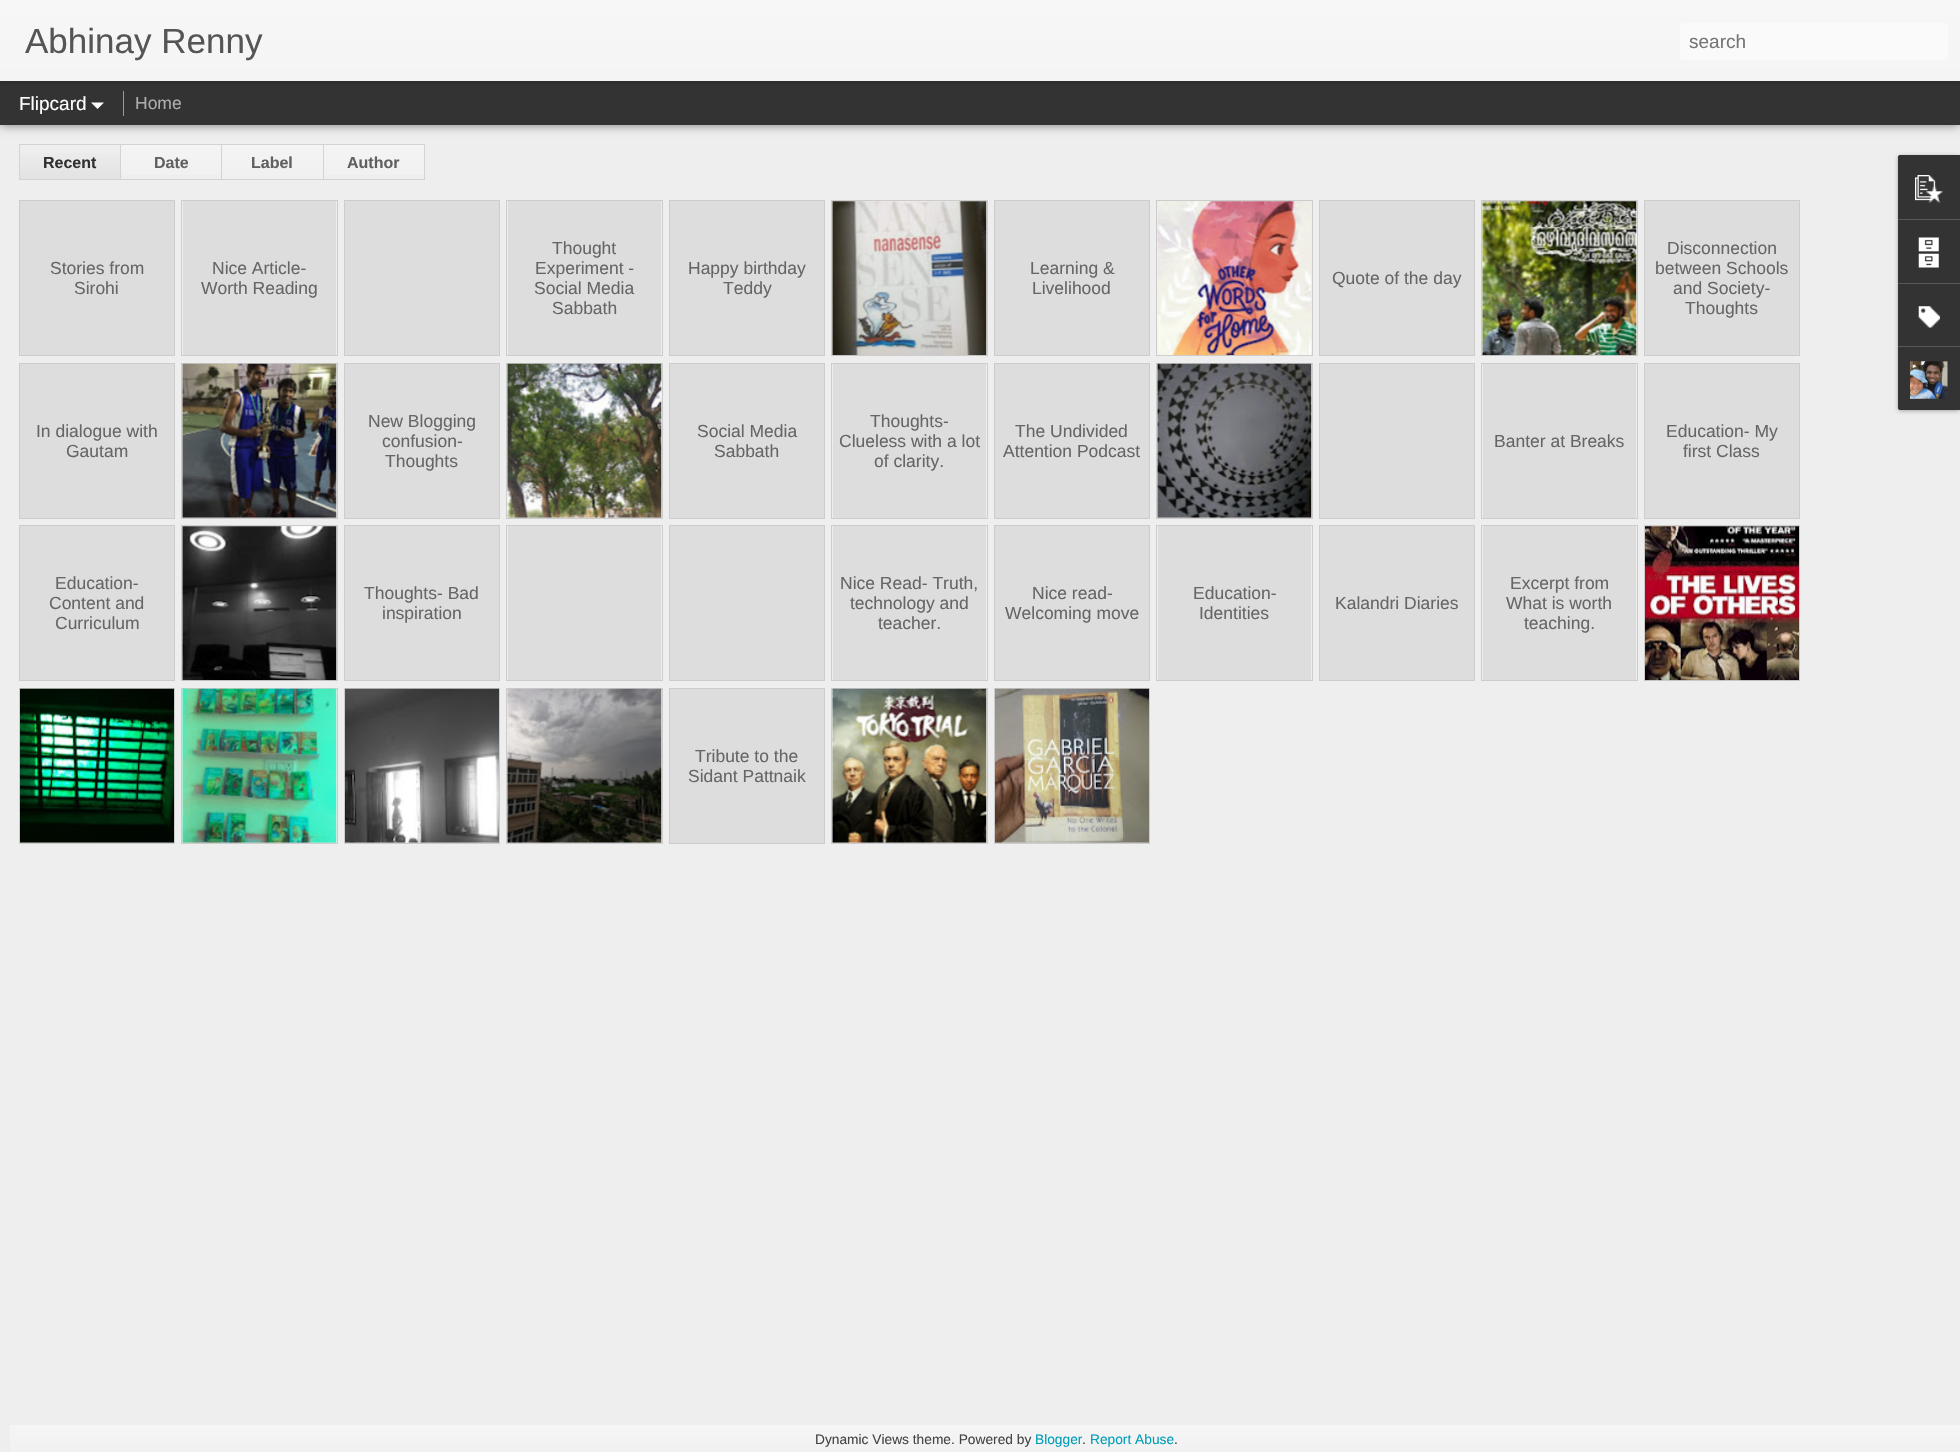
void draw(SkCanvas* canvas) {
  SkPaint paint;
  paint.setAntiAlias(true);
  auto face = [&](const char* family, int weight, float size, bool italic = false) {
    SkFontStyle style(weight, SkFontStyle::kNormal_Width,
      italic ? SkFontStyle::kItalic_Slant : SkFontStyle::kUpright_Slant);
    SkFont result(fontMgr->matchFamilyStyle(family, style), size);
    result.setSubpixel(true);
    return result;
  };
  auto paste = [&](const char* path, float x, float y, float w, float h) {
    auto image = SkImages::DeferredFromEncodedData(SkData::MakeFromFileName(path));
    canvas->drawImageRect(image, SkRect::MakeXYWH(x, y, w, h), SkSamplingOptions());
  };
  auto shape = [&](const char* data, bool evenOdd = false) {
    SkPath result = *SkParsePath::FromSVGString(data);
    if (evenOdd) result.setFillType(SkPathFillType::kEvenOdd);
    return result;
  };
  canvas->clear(0xffeeeeee);
  paint.setColor(0x80000000);
  paint.setMaskFilter(SkMaskFilter::MakeBlur(kNormal_SkBlurStyle, 5));
  canvas->drawRect(SkRect::MakeXYWH(0, 81, 1960, 44), paint);
  paint.setMaskFilter(nullptr);
  paint.setColor(0xff333333);
  canvas->drawRect(SkRect::MakeXYWH(0, 81, 1960, 44), paint);
  paint.setColor(0x4d000000);
  paint.setMaskFilter(SkMaskFilter::MakeBlur(kNormal_SkBlurStyle, 3));
  canvas->drawRect(SkRect::MakeXYWH(0, 0, 1960, 81), paint);
  paint.setMaskFilter(nullptr);
  {
    const SkColor colors[] = {0xfff7f7f7, 0xfff4f4f4};
    const float stops[] = {0, 1};
    const SkPoint ends[] = {{0, 0}, {0, 81}};
    paint.setShader(SkGradientShader::MakeLinear(ends, colors, stops, 2, SkTileMode::kClamp));
    paint.setAlpha(255);
  }
  canvas->drawRect(SkRect::MakeXYWH(0, 0, 1960, 81), paint);
  paint.setShader(nullptr);
  paint.setColor(0xfffafafa);
  canvas->drawRoundRect(SkRect::MakeXYWH(1680, 23, 268, 37), 4, 4, paint);
  paint.setColor(0xffffffff);
  canvas->drawPath(shape("M91 102.5H104L97.5 109Z"), paint);
  paint.setColor(0xff999999);
  canvas->drawRect(SkRect::MakeXYWH(123, 91, 1, 25), paint);
  {
    const SkColor colors[] = {0xffeeeeee, 0xffe3e3e3};
    const float stops[] = {0, 1};
    const SkPoint ends[] = {{70, 145}, {70, 179}};
    paint.setShader(SkGradientShader::MakeLinear(ends, colors, stops, 2, SkTileMode::kClamp));
    paint.setAlpha(255);
  }
  canvas->drawRect(SkRect::MakeXYWH(20, 153, 100, 26), paint);
  paint.setStroke(true);
  paint.setStrokeWidth(1);
  paint.setShader(nullptr);
  paint.setColor(0xffd3d3d3);
  canvas->drawRect(SkRect::MakeXYWH(19.5f, 144.5f, 101, 35), paint);
  paint.setStroke(false);
  {
    const SkColor colors[] = {0xfff4f4f4, 0xfff0f0f0};
    const float stops[] = {0, 1};
    const SkPoint ends[] = {{171, 145}, {171, 179}};
    paint.setShader(SkGradientShader::MakeLinear(ends, colors, stops, 2, SkTileMode::kClamp));
    paint.setAlpha(255);
  }
  canvas->drawRect(SkRect::MakeXYWH(121, 145, 100, 30), paint);
  paint.setStroke(true);
  paint.setShader(nullptr);
  paint.setColor(0xffd3d3d3);
  canvas->drawRect(SkRect::MakeXYWH(120.5f, 144.5f, 102, 35), paint);
  paint.setStroke(false);
  {
    const SkColor colors[] = {0xfff4f4f4, 0xfff0f0f0};
    const float stops[] = {0, 1};
    const SkPoint ends[] = {{273, 145}, {273, 179}};
    paint.setShader(SkGradientShader::MakeLinear(ends, colors, stops, 2, SkTileMode::kClamp));
    paint.setAlpha(255);
  }
  canvas->drawRect(SkRect::MakeXYWH(222, 145, 101, 34), paint);
  paint.setStroke(true);
  paint.setShader(nullptr);
  paint.setColor(0xffd3d3d3);
  canvas->drawRect(SkRect::MakeXYWH(221.5f, 144.5f, 102, 35), paint);
  paint.setStroke(false);
  {
    const SkColor colors[] = {0xfff4f4f4, 0xfff0f0f0};
    const float stops[] = {0, 1};
    const SkPoint ends[] = {{374, 145}, {374, 179}};
    paint.setShader(SkGradientShader::MakeLinear(ends, colors, stops, 2, SkTileMode::kClamp));
    paint.setAlpha(255);
  }
  canvas->drawRect(SkRect::MakeXYWH(324, 145, 100, 30), paint);
  paint.setStroke(true);
  paint.setShader(nullptr);
  paint.setColor(0xffd3d3d3);
  canvas->drawRect(SkRect::MakeXYWH(323.5f, 144.5f, 101, 35), paint);
  paint.setColor(0xffcccccc);
  canvas->drawRect(SkRect::MakeXYWH(19.5f, 200.5f, 155, 155), paint);
  paint.setStroke(false);
  paint.setColor(0xffdddddd);
  canvas->drawRect(SkRect::MakeXYWH(20, 201, 154, 154), paint);
  paint.setStroke(true);
  paint.setColor(0xffcccccc);
  canvas->drawRect(SkRect::MakeXYWH(181.5f, 200.5f, 156, 155), paint);
  paint.setStroke(false);
  paint.setColor(0xffdddddd);
  canvas->drawRect(SkRect::MakeXYWH(183, 201, 153, 154), paint);
  paint.setStroke(true);
  paint.setColor(0xffcccccc);
  canvas->drawRect(SkRect::MakeXYWH(344.5f, 200.5f, 155, 155), paint);
  paint.setStroke(false);
  paint.setColor(0xffdddddd);
  canvas->drawRect(SkRect::MakeXYWH(345, 201, 154, 154), paint);
  paint.setStroke(true);
  paint.setColor(0xffcccccc);
  canvas->drawRect(SkRect::MakeXYWH(506.5f, 200.5f, 156, 155), paint);
  paint.setStroke(false);
  paint.setColor(0xffdddddd);
  canvas->drawRect(SkRect::MakeXYWH(508, 201, 153, 154), paint);
  paint.setStroke(true);
  paint.setColor(0xffcccccc);
  canvas->drawRect(SkRect::MakeXYWH(669.5f, 200.5f, 155, 155), paint);
  paint.setStroke(false);
  paint.setColor(0xffdddddd);
  canvas->drawRect(SkRect::MakeXYWH(670, 201, 154, 154), paint);
  paint.setStroke(true);
  paint.setColor(0xffcccccc);
  canvas->drawRect(SkRect::MakeXYWH(831.5f, 200.5f, 156, 155), paint);
  paste("img/1.png", 832, 201, 155, 155);
  canvas->drawRect(SkRect::MakeXYWH(994.5f, 200.5f, 155, 155), paint);
  paint.setStroke(false);
  paint.setColor(0xffdddddd);
  canvas->drawRect(SkRect::MakeXYWH(995, 201, 154, 154), paint);
  paint.setStroke(true);
  paint.setColor(0xffcccccc);
  canvas->drawRect(SkRect::MakeXYWH(1156.5f, 200.5f, 156, 155), paint);
  paste("img/2.png", 1157, 201, 155, 155);
  canvas->drawRect(SkRect::MakeXYWH(1319.5f, 200.5f, 155, 155), paint);
  paint.setStroke(false);
  paint.setColor(0xffdddddd);
  canvas->drawRect(SkRect::MakeXYWH(1320, 201, 154, 154), paint);
  paint.setStroke(true);
  paint.setColor(0xffcccccc);
  canvas->drawRect(SkRect::MakeXYWH(1481.5f, 200.5f, 156, 155), paint);
  paste("img/3.png", 1482, 201, 155, 155);
  canvas->drawRect(SkRect::MakeXYWH(1644.5f, 200.5f, 155, 155), paint);
  paint.setStroke(false);
  paint.setColor(0xffdddddd);
  canvas->drawRect(SkRect::MakeXYWH(1645, 201, 154, 154), paint);
  paint.setStroke(true);
  paint.setColor(0xffcccccc);
  canvas->drawRect(SkRect::MakeXYWH(19.5f, 363.5f, 155, 155), paint);
  paint.setStroke(false);
  paint.setColor(0xffdddddd);
  canvas->drawRect(SkRect::MakeXYWH(20, 364, 154, 154), paint);
  paint.setStroke(true);
  paint.setColor(0xffcccccc);
  canvas->drawRect(SkRect::MakeXYWH(181.5f, 363.5f, 156, 155), paint);
  paint.setStroke(false);
  paint.setColor(0xffdddddd);
  canvas->drawRect(SkRect::MakeXYWH(183, 517, 153, 1), paint);
  paste("img/4.png", 182, 363, 155, 155);
  paint.setStroke(true);
  paint.setColor(0xffcccccc);
  canvas->drawRect(SkRect::MakeXYWH(344.5f, 363.5f, 155, 155), paint);
  paint.setStroke(false);
  paint.setColor(0xffdddddd);
  canvas->drawRect(SkRect::MakeXYWH(345, 364, 154, 154), paint);
  paint.setStroke(true);
  paint.setColor(0xffcccccc);
  canvas->drawRect(SkRect::MakeXYWH(506.5f, 363.5f, 156, 155), paint);
  paint.setStroke(false);
  paint.setColor(0xffdddddd);
  canvas->drawRect(SkRect::MakeXYWH(508, 517, 153, 1), paint);
  paste("img/5.png", 507, 363, 155, 155);
  paint.setStroke(true);
  paint.setColor(0xffcccccc);
  canvas->drawRect(SkRect::MakeXYWH(669.5f, 363.5f, 155, 155), paint);
  paint.setStroke(false);
  paint.setColor(0xffdddddd);
  canvas->drawRect(SkRect::MakeXYWH(670, 364, 154, 154), paint);
  paint.setStroke(true);
  paint.setColor(0xffcccccc);
  canvas->drawRect(SkRect::MakeXYWH(831.5f, 363.5f, 156, 155), paint);
  paint.setStroke(false);
  paint.setColor(0xffdddddd);
  canvas->drawRect(SkRect::MakeXYWH(833, 364, 153, 154), paint);
  paint.setStroke(true);
  paint.setColor(0xffcccccc);
  canvas->drawRect(SkRect::MakeXYWH(994.5f, 363.5f, 155, 155), paint);
  paint.setStroke(false);
  paint.setColor(0xffdddddd);
  canvas->drawRect(SkRect::MakeXYWH(995, 364, 154, 154), paint);
  paint.setStroke(true);
  paint.setColor(0xffcccccc);
  canvas->drawRect(SkRect::MakeXYWH(1156.5f, 363.5f, 156, 155), paint);
  paint.setStroke(false);
  paint.setColor(0xffdddddd);
  canvas->drawRect(SkRect::MakeXYWH(1158, 517, 153, 1), paint);
  paste("img/6.png", 1157, 363, 155, 155);
  paint.setStroke(true);
  paint.setColor(0xffcccccc);
  canvas->drawRect(SkRect::MakeXYWH(1319.5f, 363.5f, 155, 155), paint);
  paint.setStroke(false);
  paint.setColor(0xffdddddd);
  canvas->drawRect(SkRect::MakeXYWH(1320, 364, 154, 154), paint);
  paint.setStroke(true);
  paint.setColor(0xffcccccc);
  canvas->drawRect(SkRect::MakeXYWH(1481.5f, 363.5f, 156, 155), paint);
  paint.setStroke(false);
  paint.setColor(0xffdddddd);
  canvas->drawRect(SkRect::MakeXYWH(1483, 364, 153, 154), paint);
  paint.setStroke(true);
  paint.setColor(0xffcccccc);
  canvas->drawRect(SkRect::MakeXYWH(1644.5f, 363.5f, 155, 155), paint);
  paint.setStroke(false);
  paint.setColor(0xffdddddd);
  canvas->drawRect(SkRect::MakeXYWH(1645, 364, 154, 154), paint);
  paint.setStroke(true);
  paint.setColor(0xffcccccc);
  canvas->drawRect(SkRect::MakeXYWH(19.5f, 525.5f, 155, 155), paint);
  paint.setStroke(false);
  paint.setColor(0xffdddddd);
  canvas->drawRect(SkRect::MakeXYWH(20, 526, 154, 154), paint);
  paint.setStroke(true);
  paint.setColor(0xffcccccc);
  canvas->drawRect(SkRect::MakeXYWH(181.5f, 525.5f, 156, 155), paint);
  paste("img/7.png", 182, 526, 155, 155);
  canvas->drawRect(SkRect::MakeXYWH(344.5f, 525.5f, 155, 155), paint);
  paint.setStroke(false);
  paint.setColor(0xffdddddd);
  canvas->drawRect(SkRect::MakeXYWH(345, 526, 154, 154), paint);
  paint.setStroke(true);
  paint.setColor(0xffcccccc);
  canvas->drawRect(SkRect::MakeXYWH(506.5f, 525.5f, 156, 155), paint);
  paint.setStroke(false);
  paint.setColor(0xffdddddd);
  canvas->drawRect(SkRect::MakeXYWH(508, 526, 153, 154), paint);
  paint.setStroke(true);
  paint.setColor(0xffcccccc);
  canvas->drawRect(SkRect::MakeXYWH(669.5f, 525.5f, 155, 155), paint);
  paint.setStroke(false);
  paint.setColor(0xffdddddd);
  canvas->drawRect(SkRect::MakeXYWH(670, 526, 154, 154), paint);
  paint.setStroke(true);
  paint.setColor(0xffcccccc);
  canvas->drawRect(SkRect::MakeXYWH(831.5f, 525.5f, 156, 155), paint);
  paint.setStroke(false);
  paint.setColor(0xffdddddd);
  canvas->drawRect(SkRect::MakeXYWH(833, 526, 153, 154), paint);
  paint.setStroke(true);
  paint.setColor(0xffcccccc);
  canvas->drawRect(SkRect::MakeXYWH(994.5f, 525.5f, 155, 155), paint);
  paint.setStroke(false);
  paint.setColor(0xffdddddd);
  canvas->drawRect(SkRect::MakeXYWH(995, 526, 154, 154), paint);
  paint.setStroke(true);
  paint.setColor(0xffcccccc);
  canvas->drawRect(SkRect::MakeXYWH(1156.5f, 525.5f, 156, 155), paint);
  paint.setStroke(false);
  paint.setColor(0xffdddddd);
  canvas->drawRect(SkRect::MakeXYWH(1158, 526, 153, 154), paint);
  paint.setStroke(true);
  paint.setColor(0xffcccccc);
  canvas->drawRect(SkRect::MakeXYWH(1319.5f, 525.5f, 155, 155), paint);
  paint.setStroke(false);
  paint.setColor(0xffdddddd);
  canvas->drawRect(SkRect::MakeXYWH(1320, 526, 154, 154), paint);
  paint.setStroke(true);
  paint.setColor(0xffcccccc);
  canvas->drawRect(SkRect::MakeXYWH(1481.5f, 525.5f, 156, 155), paint);
  paint.setStroke(false);
  paint.setColor(0xffdddddd);
  canvas->drawRect(SkRect::MakeXYWH(1483, 526, 153, 154), paint);
  paint.setStroke(true);
  paint.setColor(0xffcccccc);
  canvas->drawRect(SkRect::MakeXYWH(1644.5f, 525.5f, 155, 155), paint);
  paste("img/8.png", 1645, 526, 154, 155);
  canvas->drawRect(SkRect::MakeXYWH(19.5f, 688.5f, 155, 155), paint);
  paint.setStroke(false);
  paint.setColor(0xffdddddd);
  canvas->drawRect(SkRect::MakeXYWH(20, 842, 154, 1), paint);
  paste("img/9.png", 20, 688, 154, 155);
  paint.setStroke(true);
  paint.setColor(0xffcccccc);
  canvas->drawRect(SkRect::MakeXYWH(181.5f, 688.5f, 156, 155), paint);
  paint.setStroke(false);
  paint.setColor(0xffdddddd);
  canvas->drawRect(SkRect::MakeXYWH(183, 842, 153, 1), paint);
  paste("img/10.png", 182, 688, 155, 155);
  paint.setStroke(true);
  paint.setColor(0xffcccccc);
  canvas->drawRect(SkRect::MakeXYWH(344.5f, 688.5f, 155, 155), paint);
  paint.setStroke(false);
  paint.setColor(0xffdddddd);
  canvas->drawRect(SkRect::MakeXYWH(345, 842, 154, 1), paint);
  paste("img/11.png", 345, 688, 154, 155);
  paint.setStroke(true);
  paint.setColor(0xffcccccc);
  canvas->drawRect(SkRect::MakeXYWH(506.5f, 688.5f, 156, 155), paint);
  paint.setStroke(false);
  paint.setColor(0xffdddddd);
  canvas->drawRect(SkRect::MakeXYWH(508, 842, 153, 1), paint);
  paste("img/12.png", 507, 688, 155, 155);
  paint.setStroke(true);
  paint.setColor(0xffcccccc);
  canvas->drawRect(SkRect::MakeXYWH(669.5f, 688.5f, 155, 155), paint);
  paint.setStroke(false);
  paint.setColor(0xffdddddd);
  canvas->drawRect(SkRect::MakeXYWH(670, 689, 154, 154), paint);
  paint.setStroke(true);
  paint.setColor(0xffcccccc);
  canvas->drawRect(SkRect::MakeXYWH(831.5f, 688.5f, 156, 155), paint);
  paint.setStroke(false);
  paint.setColor(0xffdddddd);
  canvas->drawRect(SkRect::MakeXYWH(833, 842, 153, 1), paint);
  paste("img/13.png", 832, 688, 155, 155);
  paint.setStroke(true);
  paint.setColor(0xffcccccc);
  canvas->drawRect(SkRect::MakeXYWH(994.5f, 688.5f, 155, 155), paint);
  paint.setStroke(false);
  paint.setColor(0xffdddddd);
  canvas->drawRect(SkRect::MakeXYWH(995, 842, 154, 1), paint);
  paste("img/14.png", 995, 688, 154, 155);
  paint.setColor(0x4d000000);
  paint.setMaskFilter(SkMaskFilter::MakeBlur(kNormal_SkBlurStyle, 2));
  canvas->drawRoundRect(SkRect::MakeXYWH(1898, 156, 62, 255), 2.5f, 2.5f, paint);
  paint.setMaskFilter(nullptr);
  paint.setColor(0xff333333);
  canvas->drawPath(shape("M1900.5 155H1960V410H1900.5C1899 410 1898 409 1898 407.5V157.5C1898 156 1899 155 1900.5 155Z"), paint);
  canvas->drawPath(shape("M1900.5 155H1960V219H1898V157.5C1898 156 1899 155 1900.5 155Z"), paint);
  paste("img/15.png", 1915, 175, 28, 28);
  paint.setColor(0xff585858);
  canvas->drawRect(SkRect::MakeXYWH(1898, 219, 62, 1), paint);
  paste("img/16.png", 1918, 237, 21, 31);
  canvas->drawRect(SkRect::MakeXYWH(1898, 283, 62, 1), paint);
  paste("img/17.png", 1918, 306, 22, 22);
  paint.setColor(0xff333333);
  canvas->drawPath(shape("M1898 346H1960V410H1900.5C1899 410 1898 409 1898 407.5Z"), paint);
  paint.setColor(0xff585858);
  canvas->drawRect(SkRect::MakeXYWH(1898, 346, 62, 1), paint);
  paste("img/18.png", 1910, 361, 38, 38);
  {
    const SkColor colors[] = {0xfff5f5f5, 0xfff1f1f1};
    const float stops[] = {0, 1};
    const SkPoint ends[] = {{996, 1425}, {996, 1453}};
    paint.setShader(SkGradientShader::MakeLinear(ends, colors, stops, 2, SkTileMode::kClamp));
    paint.setAlpha(255);
  }
  canvas->drawRect(SkRect::MakeXYWH(10, 1425, 1950, 27), paint);
  auto f0 = face("Liberation Sans", 400, 35);
  paint.setShader(nullptr);
  paint.setColor(0xff555555);
  canvas->drawString("Abhinay Renny", 25, 53, f0, paint);
  auto f1 = face("Liberation Sans", 400, 19);
  paint.setColor(0xff757575);
  canvas->drawString("search", 1689, 48, f1, paint);
  paint.setColor(0xffffffff);
  canvas->drawString("Flipcard", 19, 110, f1, paint);
  auto f2 = face("Liberation Sans", 400, 17.5f);
  paint.setColor(0xffadadad);
  canvas->drawString("Home", 135, 109, f2, paint);
  auto f3 = face("Liberation Sans", 700, 16);
  paint.setColor(0xff303030);
  canvas->drawString("Recent", 43, 168, f3, paint);
  paint.setColor(0xff606060);
  {
    const struct { const char* s; float x, y; } items[] = {
      {"Date", 154, 168},
      {"Label", 251, 168},
      {"Author", 347, 168},
    };
    for (auto [s, x, y] : items) {
      canvas->drawString(s, x, y, f3, paint);
    }
  }
  paint.setColor(0xff666666);
  {
    const struct { const char* s; float x, y; } items[] = {
      {"Stories from", 50, 274},
      {"Sirohi", 74, 294},
      {"Nice Article-", 212, 274},
      {"Worth Reading", 201, 294},
      {"Thought", 552, 254},
      {"Experiment -", 535, 274},
      {"Social Media", 534, 294},
      {"Sabbath", 552, 314},
      {"Happy birthday", 688, 274},
      {"Teddy", 723, 294},
      {"Learning &", 1030, 274},
      {"Livelihood", 1032, 294},
      {"Quote of the day", 1332, 284},
      {"Disconnection", 1667, 254},
      {"between Schools", 1655, 274},
      {"and Society-", 1673, 294},
      {"Thoughts", 1685, 314},
      {"In dialogue with", 36, 437},
      {"Gautam", 66, 457},
      {"New Blogging", 368, 427},
      {"confusion-", 382, 447},
      {"Thoughts", 385, 467},
      {"Social Media", 697, 437},
      {"Sabbath", 714, 457},
      {"Thoughts-", 870, 427},
      {"Clueless with a lot", 839, 447},
      {"of clarity.", 874, 467},
      {"The Undivided", 1015, 437},
      {"Attention Podcast", 1003, 457},
      {"Banter at Breaks", 1494, 447},
      {"Education- My", 1666, 437},
      {"first Class", 1683, 457},
      {"Education-", 55, 589},
      {"Content and", 49, 609},
      {"Curriculum", 55, 629},
      {"Thoughts- Bad", 364, 599},
      {"inspiration", 382, 619},
      {"Nice Read- Truth,", 840, 589},
      {"technology and", 850, 609},
      {"teacher.", 878, 629},
      {"Nice read-", 1032, 599},
      {"Welcoming move", 1005, 619},
      {"Education-", 1193, 599},
      {"Identities", 1199, 619},
      {"Kalandri Diaries", 1335, 609},
      {"Excerpt from", 1510, 589},
      {"What is worth", 1506, 609},
      {"teaching.", 1524, 629},
      {"Tribute to the", 695, 762},
      {"Sidant Pattnaik", 688, 782},
    };
    for (auto [s, x, y] : items) {
      canvas->drawString(s, x, y, f2, paint);
    }
  }
  auto f4 = face("Liberation Sans", 400, 13.75f);
  paint.setColor(0xff444444);
  canvas->drawString("Dynamic Views theme. Powered by", 815, 1444, f4, paint);
  paint.setColor(0xff009eb8);
  canvas->drawString("Blogger", 1035, 1444, f4, paint);
  paint.setColor(0xff444444);
  canvas->drawString(".", 1082, 1444, f4, paint);
  paint.setColor(0xff009eb8);
  canvas->drawString("Report Abuse", 1090, 1444, f4, paint);
  paint.setColor(0xff444444);
  canvas->drawString(".", 1174, 1444, f4, paint);
}
